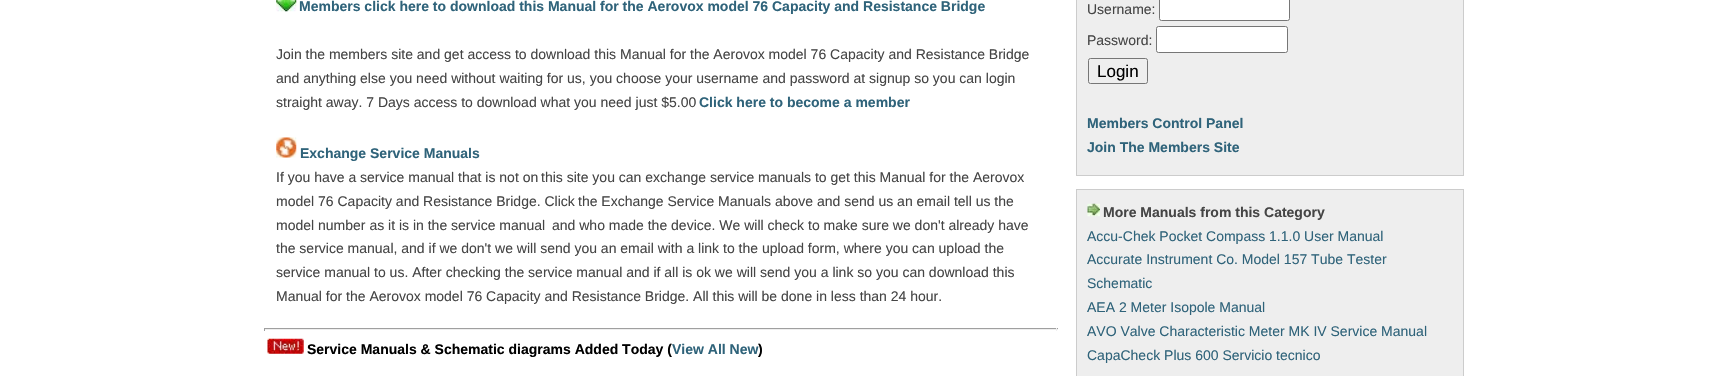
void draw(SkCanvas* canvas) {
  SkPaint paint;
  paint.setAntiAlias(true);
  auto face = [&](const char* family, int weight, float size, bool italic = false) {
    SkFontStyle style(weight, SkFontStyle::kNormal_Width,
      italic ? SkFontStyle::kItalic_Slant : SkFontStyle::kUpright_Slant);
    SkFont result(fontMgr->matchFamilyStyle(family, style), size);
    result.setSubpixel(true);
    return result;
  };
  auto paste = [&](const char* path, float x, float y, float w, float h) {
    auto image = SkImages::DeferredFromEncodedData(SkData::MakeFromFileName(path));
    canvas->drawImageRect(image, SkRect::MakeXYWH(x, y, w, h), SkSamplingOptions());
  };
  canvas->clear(0xffffffff);
  paste("img/1.png", 276, 0, 21, 12);
  paste("img/2.png", 276, 137, 21, 21);
  {
    const struct { float x, y, w, h; SkColor color; } items[] = {
      {264, 328, 794, 1, 0xff9f9f9f},
      {1056, 328, 1, 3, 0xffeeeeee},
      {264, 329, 794, 1, 0xffeeeeee},
      {264, 328, 1, 3, 0xff9f9f9f},
    };
    for (auto [x, y, w, h, color] : items) {
      paint.setColor(color);
      canvas->drawRect(SkRect::MakeXYWH(x, y, w, h), paint);
    }
  }
  paste("img/3.png", 267, 338, 37, 16);
  paint.setColor(0xffeeeeee);
  canvas->drawRect(SkRect::MakeXYWH(1076.5f, -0.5f, 387, 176), paint);
  paint.setStroke(true);
  paint.setStrokeWidth(1);
  paint.setColor(0xffcccccc);
  canvas->drawRect(SkRect::MakeXYWH(1076.5f, -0.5f, 387, 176), paint);
  paint.setStroke(false);
  paint.setColor(0xffffffff);
  canvas->drawRoundRect(SkRect::MakeXYWH(1159.5f, -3.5f, 130, 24), 2, 2, paint);
  paint.setStroke(true);
  paint.setColor(0xff767676);
  canvas->drawRoundRect(SkRect::MakeXYWH(1159.5f, -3.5f, 130, 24), 2, 2, paint);
  paint.setStroke(false);
  paint.setColor(0xffffffff);
  canvas->drawRoundRect(SkRect::MakeXYWH(1156.5f, 26.5f, 131, 26), 2, 2, paint);
  paint.setStroke(true);
  paint.setColor(0xff767676);
  canvas->drawRoundRect(SkRect::MakeXYWH(1156.5f, 26.5f, 131, 26), 2, 2, paint);
  canvas->drawRoundRect(SkRect::MakeXYWH(1088.5f, 58.5f, 59, 25), 2, 2, paint);
  paint.setStroke(false);
  paint.setColor(0xffeeeeee);
  canvas->drawRect(SkRect::MakeXYWH(1076.5f, 189.5f, 387, 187), paint);
  paint.setStroke(true);
  paint.setColor(0xffcccccc);
  canvas->drawRect(SkRect::MakeXYWH(1076.5f, 189.5f, 387, 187), paint);
  paste("img/4.png", 1087, 203, 13, 14);
  auto f0 = face("Liberation Sans", 700, 14);
  paint.setStroke(false);
  paint.setColor(0xff2f637a);
  canvas->drawString("Members click here to download this Manual for the Aerovox model 76 Capacity and Resistance Bridge", 299, 11, f0, paint);
  auto f1 = face("Liberation Sans", 400, 14);
  paint.setColor(0xff454545);
  {
    const struct { const char* s; float x, y; } items[] = {
      {"Join the members site and get access to download this Manual for the Aerovox model 76 Capacity and Resistance Bridge", 276, 59},
      {"and anything else you need without waiting for us, you choose your username and password at signup so you can login", 276, 83},
      {"straight away. 7 Days access to download what you need just $5.00", 276, 107},
    };
    for (auto [s, x, y] : items) {
      canvas->drawString(s, x, y, f1, paint);
    }
  }
  paint.setColor(0xff2f637a);
  canvas->drawString("Click here to become a member", 699, 107, f0, paint);
  canvas->drawString("Exchange Service Manuals", 300, 158, f0, paint);
  paint.setColor(0xff454545);
  {
    const struct { const char* s; float x, y; } items[] = {
      {"If you have a service manual that is not on", 276, 182},
      {"this site you can exchange service manuals to get this Manual for the Aerovox", 541, 182},
      {"model 76 Capacity and Resistance Bridge. Click", 276, 206},
      {"the Exchange Service Manuals above and send us an email tell us the", 578, 206},
      {"model number as it is in the service manual", 276, 230},
      {"and who made the device. We will check to make sure we don't already have", 552, 230},
      {"the service manual, and if we don't we will send you an email with a link to the upload form, where you can upload the", 276, 253},
      {"service manual to us. After checking the service manual and if all is ok we will send you a link so you can download this", 276, 277},
      {"Manual for the Aerovox model 76 Capacity and Resistance Bridge. All this will be done in less than 24 hour.", 276, 301},
    };
    for (auto [s, x, y] : items) {
      canvas->drawString(s, x, y, f1, paint);
    }
  }
  paint.setColor(0xff000000);
  canvas->drawString("Service Manuals & Schematic diagrams Added Today (", 307, 354, f0, paint);
  paint.setColor(0xff2f637a);
  canvas->drawString("View All New", 672, 354, f0, paint);
  paint.setColor(0xff000000);
  canvas->drawString(")", 758, 354, f0, paint);
  paint.setColor(0xff454545);
  canvas->drawString("Username:", 1087, 14, f1, paint);
  canvas->drawString("Password:", 1087, 45, f1, paint);
  auto f2 = face("Liberation Sans", 400, 17);
  paint.setColor(0xff000000);
  canvas->drawString("Login", 1097, 77, f2, paint);
  paint.setColor(0xff2f637a);
  canvas->drawString("Members Control Panel", 1087, 128, f0, paint);
  canvas->drawString("Join The Members Site", 1087, 152, f0, paint);
  paint.setColor(0xff454545);
  canvas->drawString("More Manuals from this Category", 1103, 217, f0, paint);
  paint.setColor(0xff2f637a);
  {
    const struct { const char* s; float x, y; } items[] = {
      {"Accu-Chek Pocket Compass 1.1.0 User Manual", 1087, 241},
      {"Accurate Instrument Co. Model 157 Tube Tester", 1087, 264},
      {"Schematic", 1087, 288},
      {"AEA 2 Meter Isopole Manual", 1087, 312},
      {"AVO Valve Characteristic Meter MK IV Service Manual", 1087, 336},
      {"CapaCheck Plus 600 Servicio tecnico", 1087, 360},
    };
    for (auto [s, x, y] : items) {
      canvas->drawString(s, x, y, f1, paint);
    }
  }
}
